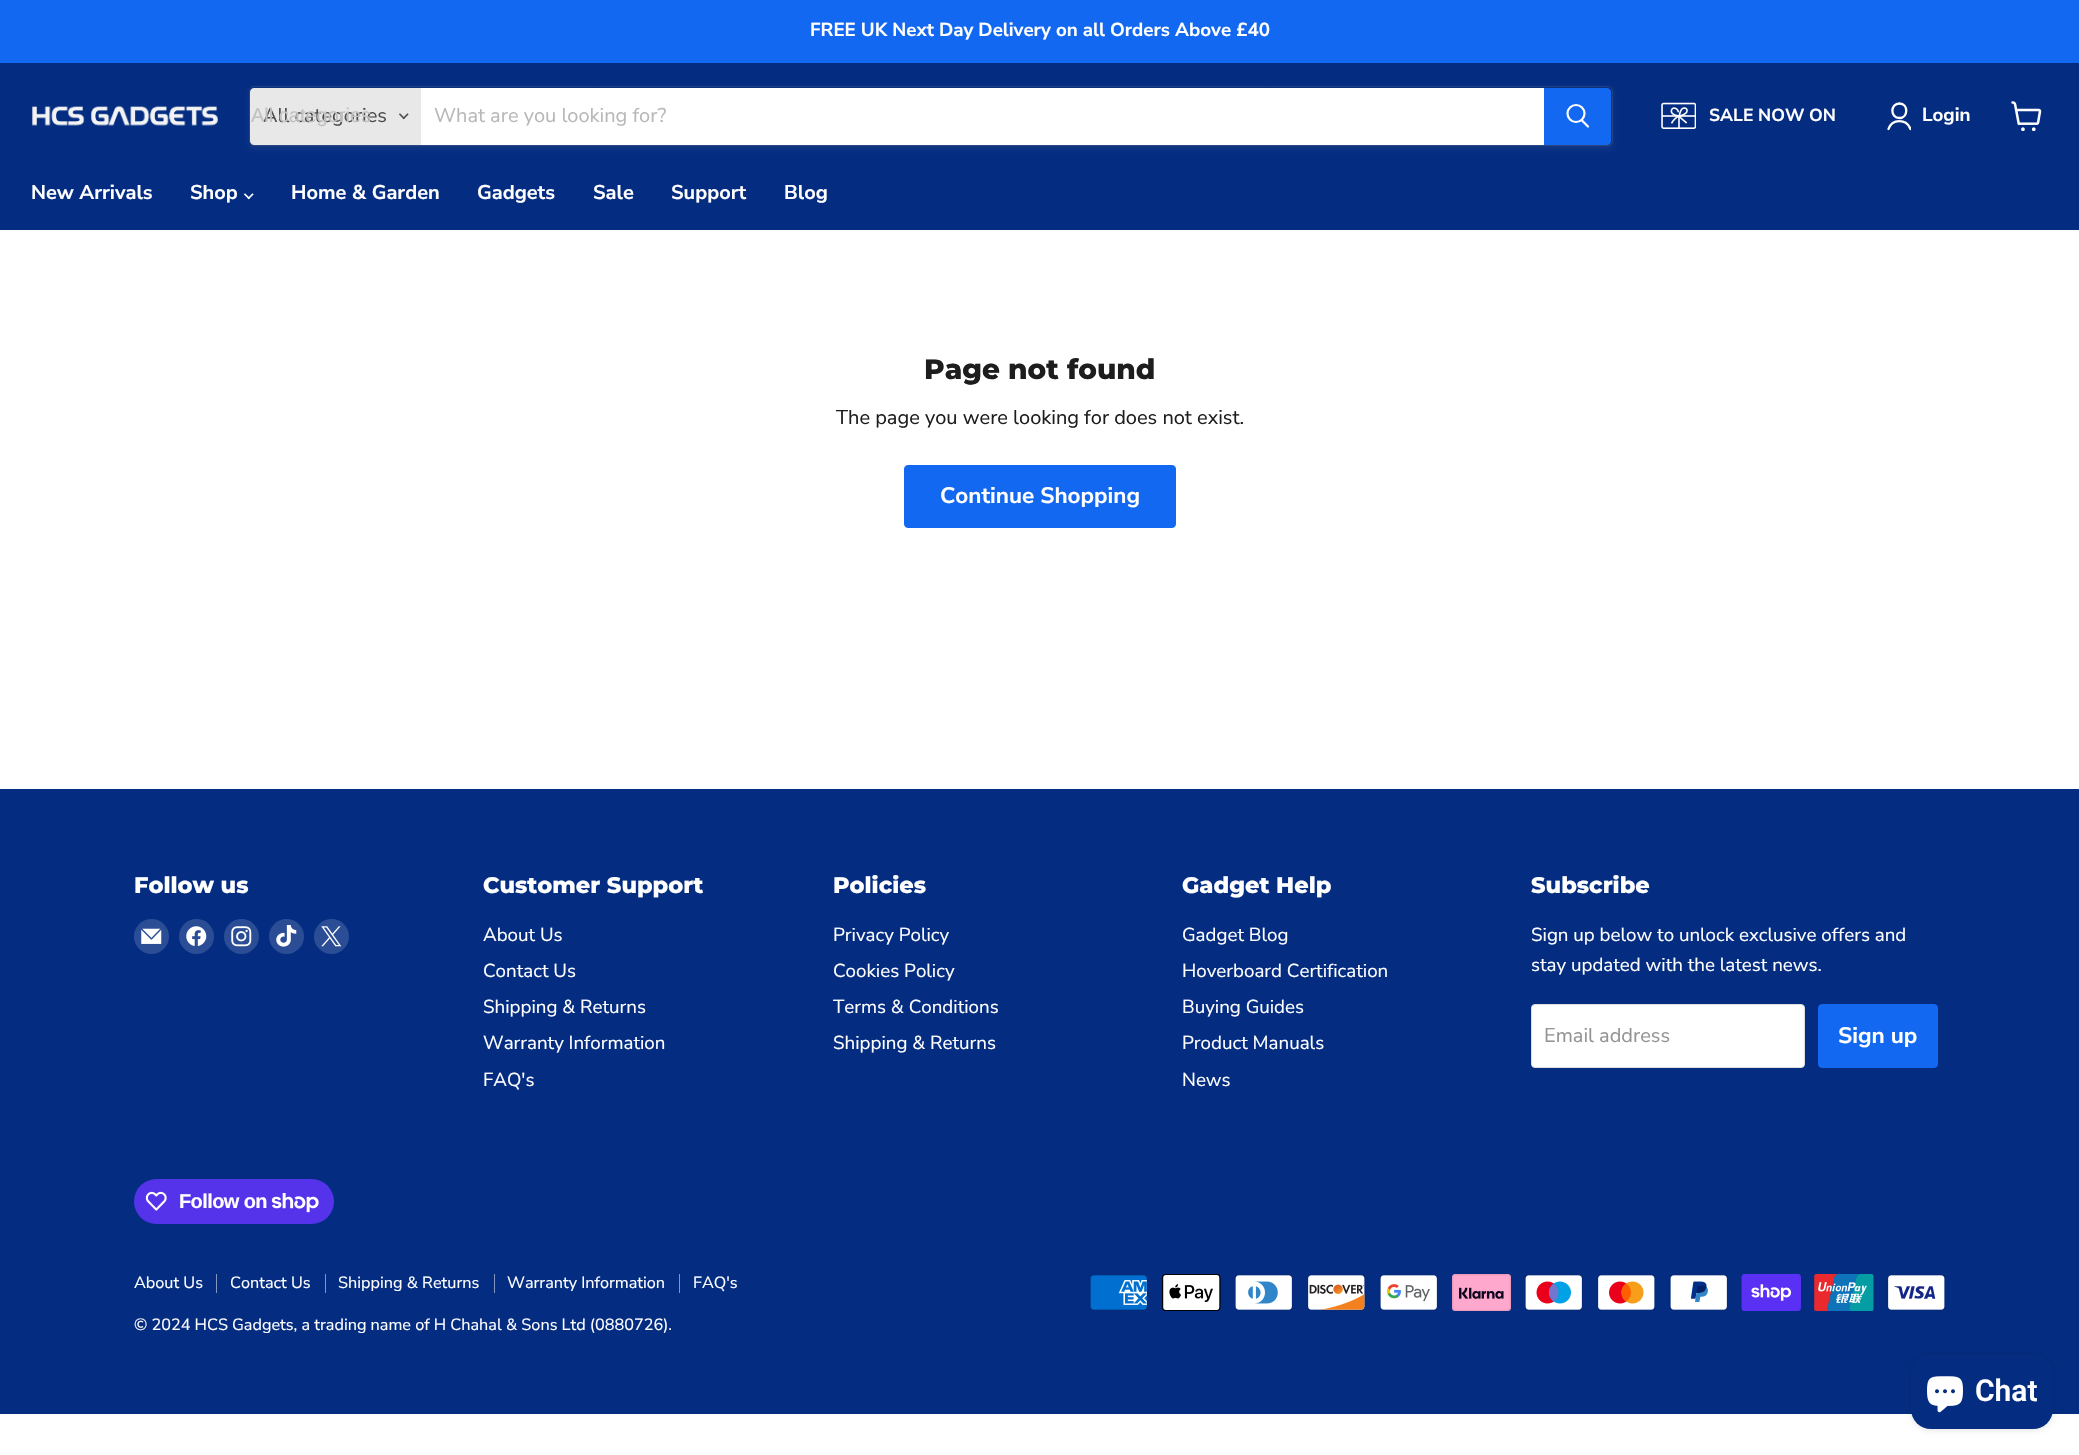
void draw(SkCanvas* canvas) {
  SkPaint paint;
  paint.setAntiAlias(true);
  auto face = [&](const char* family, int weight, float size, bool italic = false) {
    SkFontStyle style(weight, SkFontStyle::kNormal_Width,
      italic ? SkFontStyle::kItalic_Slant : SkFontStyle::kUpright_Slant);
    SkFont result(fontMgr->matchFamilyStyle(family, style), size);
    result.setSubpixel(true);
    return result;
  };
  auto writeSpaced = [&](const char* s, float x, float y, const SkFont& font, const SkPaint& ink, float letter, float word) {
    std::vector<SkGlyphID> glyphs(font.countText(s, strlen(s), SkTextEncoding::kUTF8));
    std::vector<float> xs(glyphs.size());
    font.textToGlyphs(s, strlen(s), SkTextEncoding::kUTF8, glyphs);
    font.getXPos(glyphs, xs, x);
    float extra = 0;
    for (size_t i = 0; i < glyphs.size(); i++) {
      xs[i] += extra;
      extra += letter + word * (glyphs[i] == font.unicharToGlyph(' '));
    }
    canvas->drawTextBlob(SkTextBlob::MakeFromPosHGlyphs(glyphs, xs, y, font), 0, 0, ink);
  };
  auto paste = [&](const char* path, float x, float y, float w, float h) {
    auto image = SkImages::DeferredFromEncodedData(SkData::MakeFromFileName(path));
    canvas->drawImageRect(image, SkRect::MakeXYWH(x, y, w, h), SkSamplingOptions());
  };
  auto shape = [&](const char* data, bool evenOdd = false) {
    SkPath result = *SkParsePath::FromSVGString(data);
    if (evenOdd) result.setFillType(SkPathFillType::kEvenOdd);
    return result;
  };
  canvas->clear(0xffffffff);
  paint.setColor(0xff1268f1);
  canvas->drawRect(SkRect::MakeXYWH(0, 0, 2079, 63), paint);
  paint.setColor(0xff042d82);
  canvas->drawRect(SkRect::MakeXYWH(0, 63, 2079, 167), paint);
  paste("img/1.png", 32, 105, 186, 21);
  paint.setColor(0x1c808080);
  paint.setMaskFilter(SkMaskFilter::MakeBlur(kNormal_SkBlurStyle, 2));
  canvas->drawRoundRect(SkRect::MakeXYWH(249, 89, 1364, 60), 5, 5, paint);
  paint.setMaskFilter(nullptr);
  paint.setStroke(true);
  paint.setStrokeWidth(1);
  paint.setColor(0x33808080);
  canvas->drawRoundRect(SkRect::MakeXYWH(249.5f, 86.5f, 1363, 59), 4.5f, 4.5f, paint);
  paint.setStroke(false);
  paint.setColor(0xffe8e8e8);
  canvas->drawPath(shape("M254 88H421V145H254C252 145 250 143 250 141V92C250 90 252 88 254 88Z"), paint);
  paste("img/2.png", 399, 113, 10, 7);
  paint.setColor(0xffffffff);
  canvas->drawRect(SkRect::MakeXYWH(421, 88, 1123, 57), paint);
  paint.setColor(0xff1268f1);
  canvas->drawPath(shape("M1544.5 88.5H1607C1609 88.5 1610.5 90 1610.5 92V141C1610.5 143 1609 144.5 1607 144.5H1544.5Z"), paint);
  paint.setStroke(true);
  canvas->drawPath(shape("M1544.5 88.5H1607C1609 88.5 1610.5 90 1610.5 92V141C1610.5 143 1609 144.5 1607 144.5H1544.5Z"), paint);
  paint.setStrokeWidth(2.2f);
  paint.setStrokeCap(SkPaint::kRound_Cap);
  paint.setColor(0xffffffff);
  canvas->drawPath(shape("M1588 126.5L1582 120.5"), paint);
  paint.setStrokeCap(SkPaint::kButt_Cap);
  canvas->drawCircle(1576, 113.5f, 8.5f, paint);
  paste("img/3.png", 1661, 102, 35, 27);
  paint.setStrokeWidth(2.3f);
  paint.setStrokeCap(SkPaint::kRound_Cap);
  paint.setStrokeJoin(SkPaint::kRound_Join);
  canvas->drawPath(shape("M1899.5 118C1908.5 118 1908.5 103.5 1899.5 103.5C1890 103.5 1890 118 1899.5 118Z"), paint);
  canvas->save();
  canvas->clipRect(SkRect::MakeXYWH(1886, 101, 25, 30));
  canvas->drawPath(shape("M1910.5 129C1906.5 118.5 1892 118.5 1888.5 129"), paint);
  canvas->restore();
  paste("img/4.png", 2011, 101, 31, 30);
  paste("img/5.png", 244, 193, 10, 7);
  paint.setStroke(false);
  paint.setColor(0xff1268f1);
  canvas->drawRoundRect(SkRect::MakeXYWH(904.5f, 465.5f, 271, 62), 3.5f, 3.5f, paint);
  paint.setStroke(true);
  paint.setStrokeWidth(1);
  paint.setStrokeCap(SkPaint::kButt_Cap);
  paint.setStrokeJoin(SkPaint::kMiter_Join);
  canvas->drawRoundRect(SkRect::MakeXYWH(904.5f, 465.5f, 271, 62), 3.5f, 3.5f, paint);
  paint.setStroke(false);
  paint.setColor(0xff042d82);
  canvas->drawRect(SkRect::MakeXYWH(0, 789, 2079, 625), paint);
  paint.setColor(0xff2a4d95);
  canvas->drawCircle(151.5f, 936.5f, 17.5f, paint);
  paste("img/6.png", 141, 928, 21, 16);
  canvas->drawCircle(196.5f, 936.5f, 17.5f, paint);
  paste("img/7.png", 186, 926, 21, 20);
  canvas->drawCircle(241.5f, 936.5f, 17.5f, paint);
  paste("img/8.png", 231, 926, 21, 21);
  canvas->drawCircle(286.5f, 936.5f, 17.5f, paint);
  paste("img/9.png", 276, 925, 21, 22);
  canvas->drawCircle(331.5f, 936.5f, 17.5f, paint);
  paste("img/10.png", 321, 926, 21, 21);
  paint.setColor(0xffffffff);
  canvas->drawRoundRect(SkRect::MakeXYWH(1531.5f, 1004.5f, 273, 63), 3.5f, 3.5f, paint);
  paint.setStroke(true);
  paint.setColor(0xffdddddd);
  canvas->drawRoundRect(SkRect::MakeXYWH(1531.5f, 1004.5f, 273, 63), 3.5f, 3.5f, paint);
  paint.setStroke(false);
  paint.setColor(0xff1268f1);
  canvas->drawRoundRect(SkRect::MakeXYWH(1818.5f, 1004.5f, 119, 63), 3.5f, 3.5f, paint);
  paint.setStroke(true);
  canvas->drawRoundRect(SkRect::MakeXYWH(1818.5f, 1004.5f, 119, 63), 3.5f, 3.5f, paint);
  paint.setStroke(false);
  paint.setColor(0xff5433eb);
  canvas->drawRoundRect(SkRect::MakeXYWH(134, 1179, 200, 45), 22.5f, 22.5f, paint);
  paste("img/11.png", 145, 1191, 22, 20);
  paste("img/12.png", 271, 1193, 48, 20);
  {
    const struct { float x, y, w, h; SkColor color; } items[] = {
      {216, 1274, 1, 19, 0xff8296c1},
      {325, 1274, 1, 19, 0xff8296c1},
      {494, 1274, 1, 19, 0xff8296c1},
      {679, 1274, 1, 19, 0xff8296c1},
    };
    for (auto [x, y, w, h, color] : items) {
      paint.setColor(color);
      canvas->drawRect(SkRect::MakeXYWH(x, y, w, h), paint);
    }
  }
  paste("img/13.png", 1089, 1274, 60, 37);
  paste("img/14.png", 1161, 1274, 60, 37);
  paste("img/15.png", 1234, 1274, 60, 37);
  paste("img/16.png", 1306, 1274, 60, 37);
  paste("img/17.png", 1379, 1274, 60, 37);
  paste("img/18.png", 1452, 1274, 59, 37);
  paste("img/19.png", 1524, 1274, 60, 37);
  paste("img/20.png", 1596, 1274, 60, 37);
  paste("img/21.png", 1669, 1274, 60, 37);
  paste("img/22.png", 1741, 1274, 60, 37);
  paste("img/23.png", 1814, 1274, 60, 37);
  paste("img/24.png", 1886, 1274, 60, 37);
  paint.setColor(0x26000000);
  paint.setMaskFilter(SkMaskFilter::MakeBlur(kNormal_SkBlurStyle, 3));
  canvas->drawRoundRect(SkRect::MakeXYWH(1911, 1354, 142, 75), 20, 20, paint);
  paint.setMaskFilter(nullptr);
  paint.setColor(0xff042d82);
  canvas->drawRoundRect(SkRect::MakeXYWH(1911, 1354, 142, 75), 20, 20, paint);
  paste("img/25.png", 1927, 1376, 36, 37);
  auto f0 = face("Nunito Sans", 700, 18.75f);
  paint.setColor(0xffffffff);
  canvas->drawString("FREE UK Next Day Delivery on all Orders Above £40", 810, 36, f0, paint);
  auto f1 = face("Nunito Sans", 400, 20);
  paint.setColor(0xff4d4d4d);
  canvas->drawString("All categories", 263, 122, f1, paint);
  auto f2 = face("Liberation Sans", 400, 20);
  paint.setColor(0xffc2c2c2);
  canvas->drawString("All categories", 251, 122, f2, paint);
  paint.setColor(0xffb8b8b8);
  canvas->drawString("What are you looking for?", 434, 122, f1, paint);
  auto f3 = face("Nunito Sans", 700, 17.5f);
  paint.setColor(0xffffffff);
  canvas->drawString("SALE NOW ON", 1709, 121, f3, paint);
  canvas->drawString("Login", 1922, 121, f0, paint);
  auto f4 = face("Nunito Sans", 700, 20);
  {
    const struct { const char* s; float x, y; } items[] = {
      {"New Arrivals", 31, 199},
      {"Shop", 190, 199},
      {"Home & Garden", 291, 199},
      {"Gadgets", 477, 199},
      {"Sale", 593, 199},
      {"Support", 671, 199},
      {"Blog", 784, 199},
    };
    for (auto [s, x, y] : items) {
      canvas->drawString(s, x, y, f4, paint);
    }
  }
  auto f5 = face("Montserrat", 800, 28);
  paint.setColor(0xff1d1d1d);
  canvas->drawString("Page not found", 924, 379, f5, paint);
  canvas->drawString("The page you were looking for does not exist.", 836, 424, f1, paint);
  auto f6 = face("Nunito Sans", 700, 22.5f);
  paint.setColor(0xffffffff);
  canvas->drawString("Continue Shopping", 940, 503, f6, paint);
  auto f7 = face("Montserrat", 800, 22.5f);
  canvas->drawString("Follow us", 134, 893, f7, paint);
  canvas->drawString("Customer Support", 483, 893, f7, paint);
  auto f8 = face("Nunito Sans", 400, 18.75f);
  {
    const struct { const char* s; float x, y; } items[] = {
      {"About Us", 483, 941},
      {"Contact Us", 483, 977},
      {"Shipping & Returns", 483, 1013},
      {"Warranty Information", 483, 1049},
      {"FAQ's", 483, 1086},
    };
    for (auto [s, x, y] : items) {
      canvas->drawString(s, x, y, f8, paint);
    }
  }
  canvas->drawString("Policies", 833, 893, f7, paint);
  {
    const struct { const char* s; float x, y; } items[] = {
      {"Privacy Policy", 833, 941},
      {"Cookies Policy", 833, 977},
      {"Terms & Conditions", 833, 1013},
      {"Shipping & Returns", 833, 1049},
    };
    for (auto [s, x, y] : items) {
      canvas->drawString(s, x, y, f8, paint);
    }
  }
  canvas->drawString("Gadget Help", 1182, 893, f7, paint);
  {
    const struct { const char* s; float x, y; } items[] = {
      {"Gadget Blog", 1182, 941},
      {"Hoverboard Certification", 1182, 977},
      {"Buying Guides", 1182, 1013},
      {"Product Manuals", 1182, 1049},
      {"News", 1182, 1086},
    };
    for (auto [s, x, y] : items) {
      canvas->drawString(s, x, y, f8, paint);
    }
  }
  canvas->drawString("Subscribe", 1531, 893, f7, paint);
  canvas->drawString("Sign up below to unlock exclusive offers and", 1531, 941, f8, paint);
  canvas->drawString("stay updated with the latest news.", 1531, 971, f8, paint);
  paint.setColor(0xff949494);
  canvas->drawString("Email address", 1544, 1042, f1, paint);
  paint.setColor(0xffffffff);
  canvas->drawString("Sign up", 1838, 1043, f6, paint);
  auto f9 = face("Liberation Sans", 700, 20);
  writeSpaced("Follow on", 179, 1208, f9, paint, -0.6f, 0);
  auto f10 = face("Nunito Sans", 400, 16.25f);
  {
    const struct { const char* s; float x, y; } items[] = {
      {"About Us", 134, 1288},
      {"Contact Us", 230, 1288},
      {"Shipping & Returns", 338, 1288},
      {"Warranty Information", 507, 1288},
      {"FAQ's", 693, 1288},
      {"© 2024 HCS Gadgets, a trading name of H Chahal & Sons Ltd (0880726).", 134, 1330},
    };
    for (auto [s, x, y] : items) {
      canvas->drawString(s, x, y, f10, paint);
    }
  }
  auto f11 = face("Roboto", 600, 30);
  canvas->drawString("Chat", 1975, 1401, f11, paint);
}
